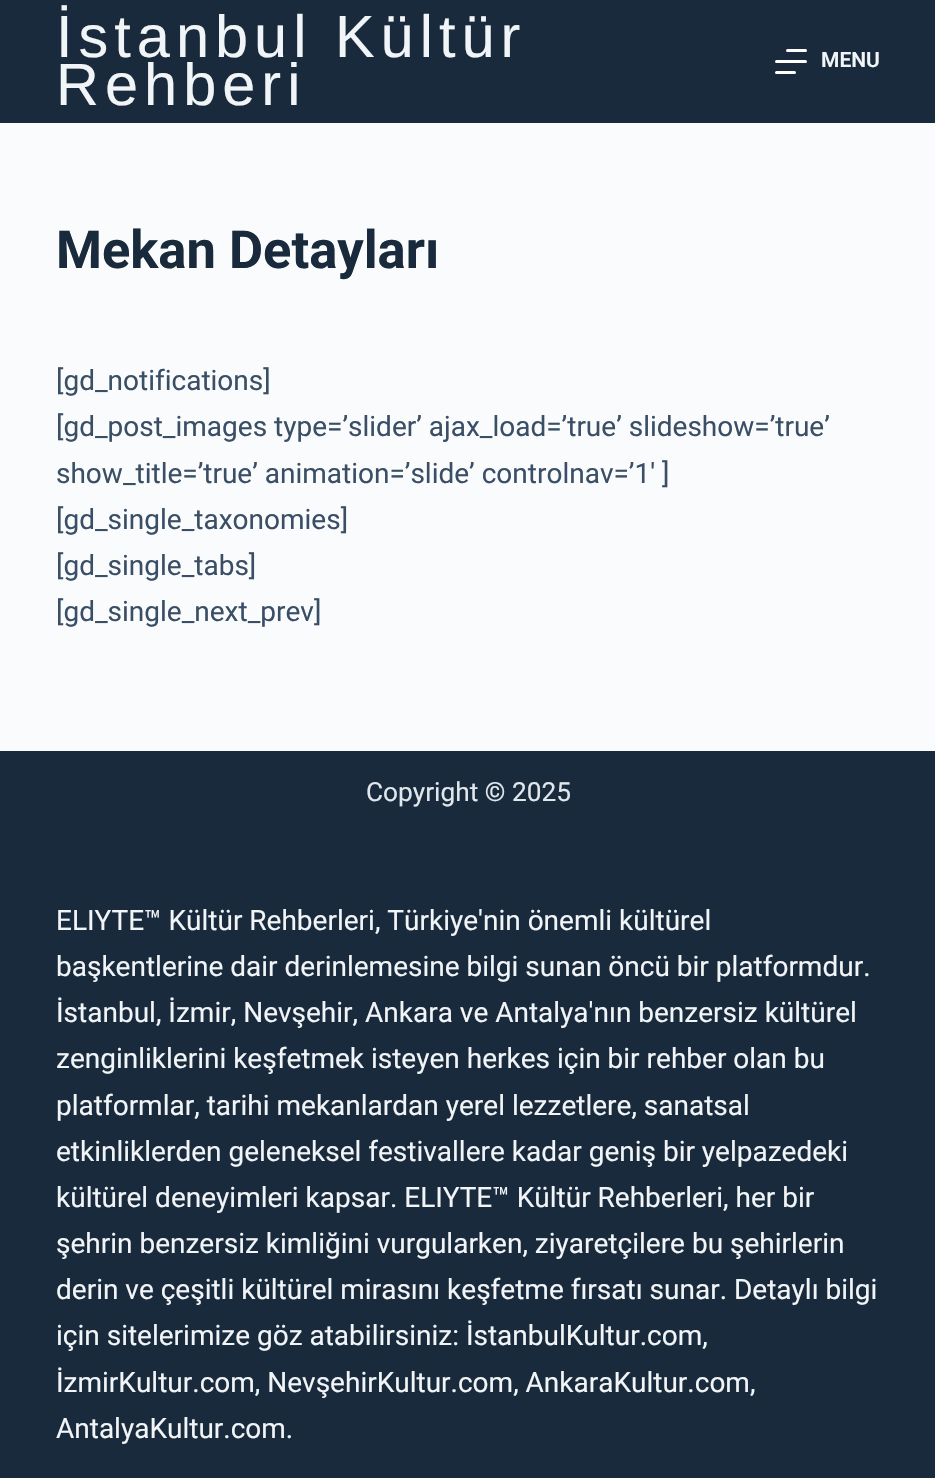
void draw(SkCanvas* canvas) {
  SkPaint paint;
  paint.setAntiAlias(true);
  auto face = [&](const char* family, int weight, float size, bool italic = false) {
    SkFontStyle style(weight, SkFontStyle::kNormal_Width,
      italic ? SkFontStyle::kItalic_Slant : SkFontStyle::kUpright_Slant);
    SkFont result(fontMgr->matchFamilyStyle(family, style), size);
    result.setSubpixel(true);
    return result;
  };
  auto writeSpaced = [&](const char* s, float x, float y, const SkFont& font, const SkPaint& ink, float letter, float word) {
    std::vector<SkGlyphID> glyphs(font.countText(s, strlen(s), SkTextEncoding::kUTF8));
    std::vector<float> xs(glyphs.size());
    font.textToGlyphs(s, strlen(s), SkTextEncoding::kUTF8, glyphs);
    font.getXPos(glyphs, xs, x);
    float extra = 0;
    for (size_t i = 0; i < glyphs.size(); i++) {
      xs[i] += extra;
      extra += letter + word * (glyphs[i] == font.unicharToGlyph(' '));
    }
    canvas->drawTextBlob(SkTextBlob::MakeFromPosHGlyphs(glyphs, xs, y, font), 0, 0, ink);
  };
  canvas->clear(0xfffafbfc);
  paint.setColor(0xff192a3d);
  canvas->drawRect(SkRect::MakeXYWH(0, 0, 935, 123), paint);
  paint.setColor(0xffffffff);
  canvas->drawRoundRect(SkRect::MakeXYWH(786, 49, 21, 3), 1.5f, 1.5f, paint);
  canvas->drawRoundRect(SkRect::MakeXYWH(775, 60, 32, 3), 1.5f, 1.5f, paint);
  canvas->drawRoundRect(SkRect::MakeXYWH(775, 71, 21, 3), 1.5f, 1.5f, paint);
  paint.setColor(0xff192a3d);
  canvas->drawRect(SkRect::MakeXYWH(0, 751, 935, 727), paint);
  auto f0 = face("Liberation Sans", 400, 59.5f);
  paint.setColor(0xfff2f5f7);
  writeSpaced("İstanbul Kültür", 56, 57, f0, paint, 6, 0);
  writeSpaced("Rehberi", 56, 105, f0, paint, 6, 0);
  auto f1 = face("Roboto", 600, 21);
  canvas->drawString("MENU", 821, 67, f1, paint);
  auto f2 = face("Roboto", 700, 52.5f);
  paint.setColor(0xff192a3d);
  canvas->drawString("Mekan Detayları", 56, 268, f2, paint);
  auto f3 = face("Roboto", 400, 28);
  paint.setColor(0xff3a4f66);
  {
    const struct { const char* s; float x, y; } items[] = {
      {"[gd_notifications]", 56, 390},
      {"[gd_post_images type=’slider’ ajax_load=’true’ slideshow=’true’", 56, 436},
      {"show_title=’true’ animation=’slide’ controlnav=’1′ ]", 56, 483},
      {"[gd_single_taxonomies]", 56, 529},
      {"[gd_single_tabs]", 56, 575},
      {"[gd_single_next_prev]", 56, 621},
    };
    for (auto [s, x, y] : items) {
      canvas->drawString(s, x, y, f3, paint);
    }
  }
  auto f4 = face("Roboto", 400, 26.25f);
  paint.setColor(0xffe1e8ed);
  canvas->drawString("Copyright © 2025", 366, 801, f4, paint);
  paint.setColor(0xfff2f5f7);
  {
    const struct { const char* s; float x, y; } items[] = {
      {"ELIYTE™ Kültür Rehberleri, Türkiye'nin önemli kültürel", 56, 930},
      {"başkentlerine dair derinlemesine bilgi sunan öncü bir platformdur.", 56, 976},
      {"İstanbul, İzmir, Nevşehir, Ankara ve Antalya'nın benzersiz kültürel", 56, 1022},
      {"zenginliklerini keşfetmek isteyen herkes için bir rehber olan bu", 56, 1068},
      {"platformlar, tarihi mekanlardan yerel lezzetlere, sanatsal", 56, 1115},
      {"etkinliklerden geleneksel festivallere kadar geniş bir yelpazedeki", 56, 1161},
      {"kültürel deneyimleri kapsar. ELIYTE™ Kültür Rehberleri, her bir", 56, 1207},
      {"şehrin benzersiz kimliğini vurgularken, ziyaretçilere bu şehirlerin", 56, 1253},
      {"derin ve çeşitli kültürel mirasını keşfetme fırsatı sunar. Detaylı bilgi", 56, 1299},
      {"için sitelerimize göz atabilirsiniz: İstanbulKultur.com,", 56, 1345},
      {"İzmirKultur.com, NevşehirKultur.com, AnkaraKultur.com,", 56, 1392},
      {"AntalyaKultur.com.", 56, 1438},
    };
    for (auto [s, x, y] : items) {
      canvas->drawString(s, x, y, f3, paint);
    }
  }
}
